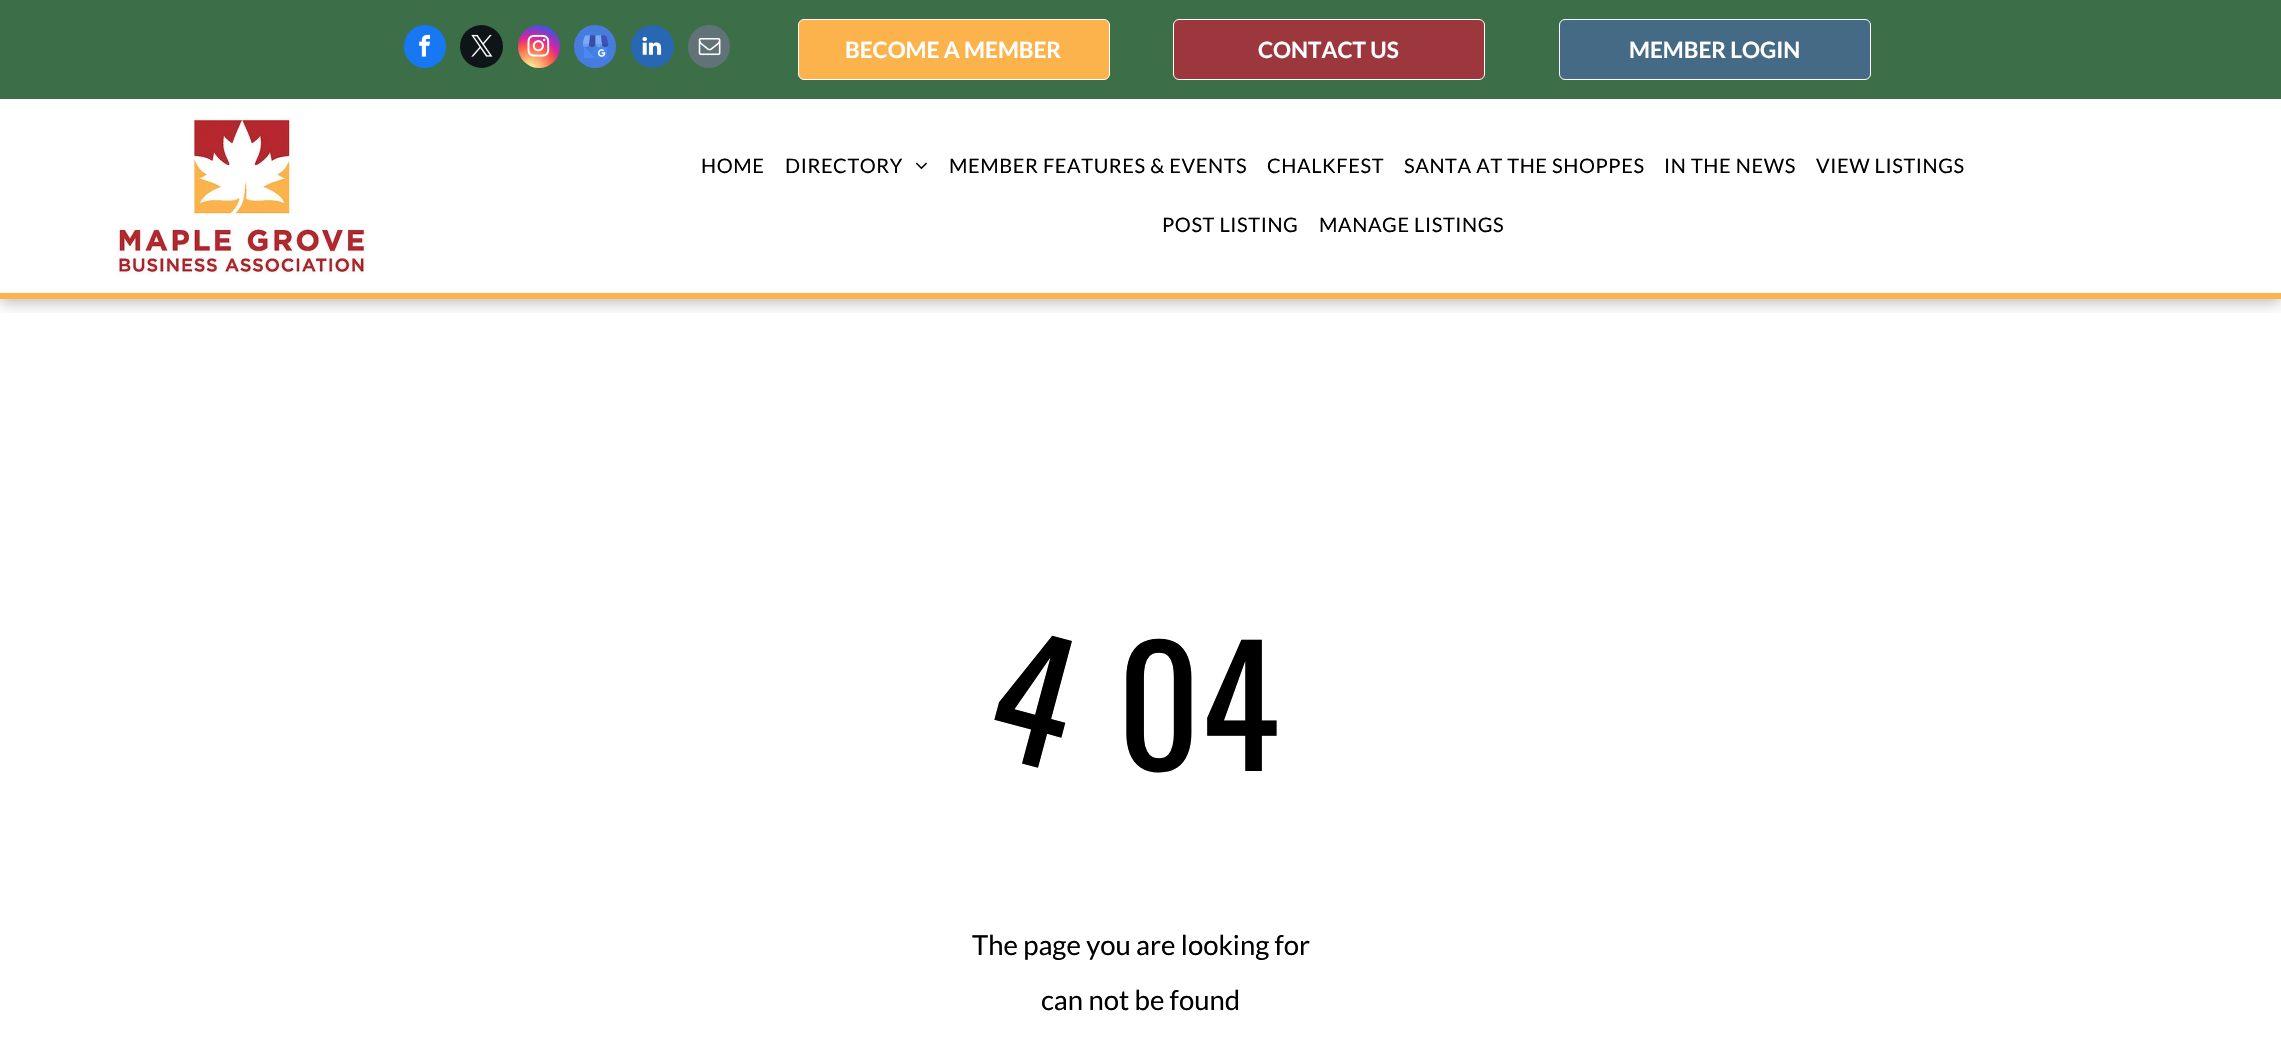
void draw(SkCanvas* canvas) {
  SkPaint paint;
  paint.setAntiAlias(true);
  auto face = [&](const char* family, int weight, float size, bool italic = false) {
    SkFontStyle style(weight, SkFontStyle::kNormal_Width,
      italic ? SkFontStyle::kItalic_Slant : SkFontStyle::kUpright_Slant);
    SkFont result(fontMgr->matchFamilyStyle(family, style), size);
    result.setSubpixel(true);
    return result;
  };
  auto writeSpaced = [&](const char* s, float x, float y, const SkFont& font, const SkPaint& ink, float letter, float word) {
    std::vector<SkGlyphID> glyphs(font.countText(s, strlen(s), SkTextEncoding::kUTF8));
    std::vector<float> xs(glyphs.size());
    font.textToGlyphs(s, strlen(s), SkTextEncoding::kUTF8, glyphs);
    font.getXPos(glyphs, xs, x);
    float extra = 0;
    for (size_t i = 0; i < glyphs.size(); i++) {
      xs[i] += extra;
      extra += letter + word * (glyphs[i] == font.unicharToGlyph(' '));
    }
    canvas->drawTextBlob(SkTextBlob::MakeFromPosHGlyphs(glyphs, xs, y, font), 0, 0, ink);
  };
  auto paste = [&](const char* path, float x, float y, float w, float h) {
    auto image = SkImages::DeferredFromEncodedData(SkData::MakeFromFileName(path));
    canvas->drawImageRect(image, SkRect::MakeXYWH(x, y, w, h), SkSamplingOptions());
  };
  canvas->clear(0xffffffff);
  canvas->save();
  canvas->clipRect(SkRect::MakeXYWH(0, 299, 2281, 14));
  paint.setColor(0x40000000);
  paint.setMaskFilter(SkMaskFilter::MakeBlur(kNormal_SkBlurStyle, 7));
  canvas->drawRect(SkRect::MakeXYWH(0, 4, 2281, 299), paint);
  paint.setMaskFilter(nullptr);
  canvas->restore();
  paint.setColor(0xfffcb34c);
  canvas->drawRect(SkRect::MakeXYWH(0, 293, 2281, 6), paint);
  paint.setColor(0xff3c6e47);
  canvas->drawRect(SkRect::MakeXYWH(0, 0, 2281, 99), paint);
  paint.setColor(0xff1877f2);
  canvas->drawRoundRect(SkRect::MakeXYWH(404, 25, 42, 43), 21, 21, paint);
  paste("img/1.png", 419, 34, 11, 23);
  paint.setColor(0xff0f1419);
  canvas->drawCircle(481.5f, 46.5f, 21.5f, paint);
  paste("img/2.png", 471, 34, 22, 23);
  {
    const SkColor colors[] = {0xfffdf497, 0xfffdf497, 0xfffd5949, 0xffd6249f, 0xff285aeb};
    const float stops[] = {0, 0.05f, 0.45f, 0.6f, 0.9f};
    paint.setShader(SkGradientShader::MakeRadial({530, 70}, 54, colors, stops, 5, SkTileMode::kClamp));
    paint.setAlpha(255);
  }
  canvas->drawRoundRect(SkRect::MakeXYWH(518, 25, 42, 43), 21, 21, paint);
  paste("img/3.png", 527, 34, 23, 23);
  paint.setShader(nullptr);
  paint.setColor(0xff477cdf);
  canvas->drawRoundRect(SkRect::MakeXYWH(574, 25, 42, 43), 21, 21, paint);
  paste("img/4.png", 583, 35, 26, 23);
  paint.setColor(0xff2867b2);
  canvas->drawCircle(652.5f, 46.5f, 21.5f, paint);
  paste("img/5.png", 642, 37, 20, 18);
  paint.setColor(0xff617379);
  canvas->drawRoundRect(SkRect::MakeXYWH(688, 25, 42, 43), 21, 21, paint);
  paste("img/6.png", 698, 38, 23, 18);
  paint.setColor(0xfffcb34c);
  canvas->drawRoundRect(SkRect::MakeXYWH(798.5f, 19.5f, 311, 60), 5.5f, 5.5f, paint);
  paint.setStroke(true);
  paint.setStrokeWidth(1);
  paint.setColor(0xffffffff);
  canvas->drawRoundRect(SkRect::MakeXYWH(798.5f, 19.5f, 311, 60), 5.5f, 5.5f, paint);
  paint.setStroke(false);
  paint.setColor(0xff9c383d);
  canvas->drawRoundRect(SkRect::MakeXYWH(1173.5f, 19.5f, 311, 60), 5.5f, 5.5f, paint);
  paint.setStroke(true);
  paint.setColor(0xffffffff);
  canvas->drawRoundRect(SkRect::MakeXYWH(1173.5f, 19.5f, 311, 60), 5.5f, 5.5f, paint);
  paint.setStroke(false);
  paint.setColor(0xff446a86);
  canvas->drawRoundRect(SkRect::MakeXYWH(1559.5f, 19.5f, 311, 60), 5.5f, 5.5f, paint);
  paint.setStroke(true);
  paint.setColor(0xffffffff);
  canvas->drawRoundRect(SkRect::MakeXYWH(1559.5f, 19.5f, 311, 60), 5.5f, 5.5f, paint);
  paste("img/7.png", 117, 117, 249, 158);
  paste("img/8.png", 915, 162, 12, 8);
  auto f0 = face("Lato", 700, 22.5f);
  paint.setStroke(false);
  {
    const struct { const char* s; float x, y; } items[] = {
      {"BECOME A MEMBER", 845, 58},
      {"CONTACT US", 1258, 58},
      {"MEMBER LOGIN", 1629, 58},
    };
    for (auto [s, x, y] : items) {
      canvas->drawString(s, x, y, f0, paint);
    }
  }
  auto f1 = face("Lato", 400, 20);
  paint.setColor(0xff000000);
  {
    const struct { const char* s; float x, y; } items[] = {
      {"HOME", 701, 173},
      {"DIRECTORY", 785, 173},
      {"MEMBER FEATURES & EVENTS", 949, 173},
      {"CHALKFEST", 1267, 173},
      {"SANTA AT THE SHOPPES", 1404, 173},
      {"IN THE NEWS", 1664, 173},
      {"VIEW LISTINGS", 1816, 173},
      {"POST LISTING", 1162, 232},
      {"MANAGE LISTINGS", 1319, 232},
    };
    for (auto [s, x, y] : items) {
      writeSpaced(s, x, y, f1, paint, 0.6f, 0);
    }
  }
  auto f2 = face("Oswald", 400, 162);
  canvas->save();
  canvas->rotate(15, 979, 752);
  canvas->drawString("4", 979, 752, f2, paint);
  canvas->restore();
  canvas->drawString("04", 1117, 771, f2, paint);
  auto f3 = face("Lato", 400, 27.5f);
  canvas->drawString("The page you are looking for", 972, 955, f3, paint);
  canvas->drawString("can not be found", 1041, 1010, f3, paint);
}
